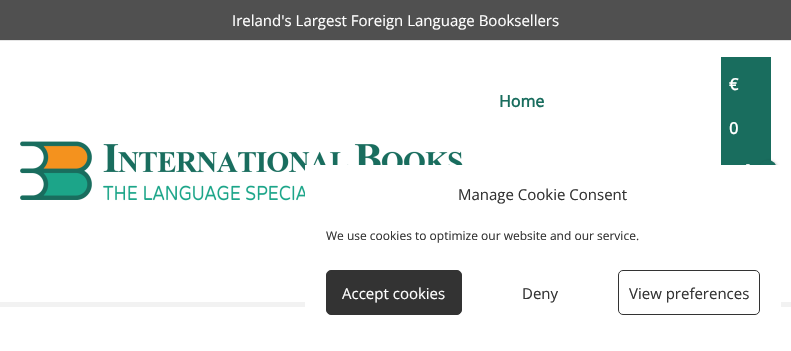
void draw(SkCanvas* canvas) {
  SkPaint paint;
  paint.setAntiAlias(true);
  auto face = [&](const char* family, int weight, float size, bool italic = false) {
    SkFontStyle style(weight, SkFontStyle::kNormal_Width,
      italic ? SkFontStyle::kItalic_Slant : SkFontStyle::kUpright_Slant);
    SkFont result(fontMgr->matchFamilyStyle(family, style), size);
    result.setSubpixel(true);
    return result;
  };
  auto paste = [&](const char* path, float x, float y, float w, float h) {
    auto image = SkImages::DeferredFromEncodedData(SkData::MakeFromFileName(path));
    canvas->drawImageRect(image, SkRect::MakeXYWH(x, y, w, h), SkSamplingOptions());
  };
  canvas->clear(0xffffffff);
  {
    const struct { float x, y, w, h; SkColor color; } items[] = {
      {0, 0, 791, 40, 0xff505050},
      {0, 40, 791, 1, 0xffe5e5e5},
      {0, 302, 791, 5, 0xfff2f2f2},
      {721, 57, 50, 108, 0xff196d5e},
    };
    for (auto [x, y, w, h, color] : items) {
      paint.setColor(color);
      canvas->drawRect(SkRect::MakeXYWH(x, y, w, h), paint);
    }
  }
  paste("img/1.png", 746, 164, 4, 1);
  paint.setColor(0x4d000000);
  paint.setMaskFilter(SkMaskFilter::MakeBlur(kNormal_SkBlurStyle, 1.5f));
  canvas->drawRoundRect(SkRect::MakeXYWH(760, 161, 18, 18), 9, 9, paint);
  paint.setMaskFilter(nullptr);
  paint.setColor(0xff196d5e);
  canvas->drawCircle(768, 169, 9, paint);
  paste("img/2.png", 20, 141, 443, 60);
  paint.setColor(0xffffffff);
  canvas->drawRect(SkRect::MakeXYWH(305, 165, 476, 142), paint);
  paint.setColor(0xff333333);
  canvas->drawRoundRect(SkRect::MakeXYWH(326.5f, 270.5f, 135, 44), 4.5f, 4.5f, paint);
  paint.setStroke(true);
  paint.setStrokeWidth(1);
  canvas->drawRoundRect(SkRect::MakeXYWH(326.5f, 270.5f, 135, 44), 4.5f, 4.5f, paint);
  canvas->drawRoundRect(SkRect::MakeXYWH(618.5f, 270.5f, 141, 44), 4.5f, 4.5f, paint);
  auto f0 = face("Open Sans", 400, 15);
  paint.setStroke(false);
  paint.setColor(0xffffffff);
  canvas->drawString("Ireland's Largest Foreign Language Booksellers", 232, 26, f0, paint);
  auto f1 = face("Open Sans", 700, 16);
  paint.setColor(0xff196d5e);
  canvas->drawString("Home", 499, 107, f1, paint);
  paint.setColor(0xffffffff);
  canvas->drawString("€", 729, 90, f1, paint);
  canvas->drawString("0", 729, 134, f1, paint);
  paint.setColor(0xff333333);
  canvas->drawString("Manage Cookie Consent", 458, 200, f0, paint);
  auto f2 = face("Open Sans", 400, 12);
  canvas->drawString("We use cookies to optimize our website and our service.", 326, 240, f2, paint);
  paint.setColor(0xffffffff);
  canvas->drawString("Accept cookies", 342, 299, f0, paint);
  paint.setColor(0xff333333);
  canvas->drawString("Deny", 522, 299, f0, paint);
  canvas->drawString("View preferences", 629, 299, f0, paint);
}
